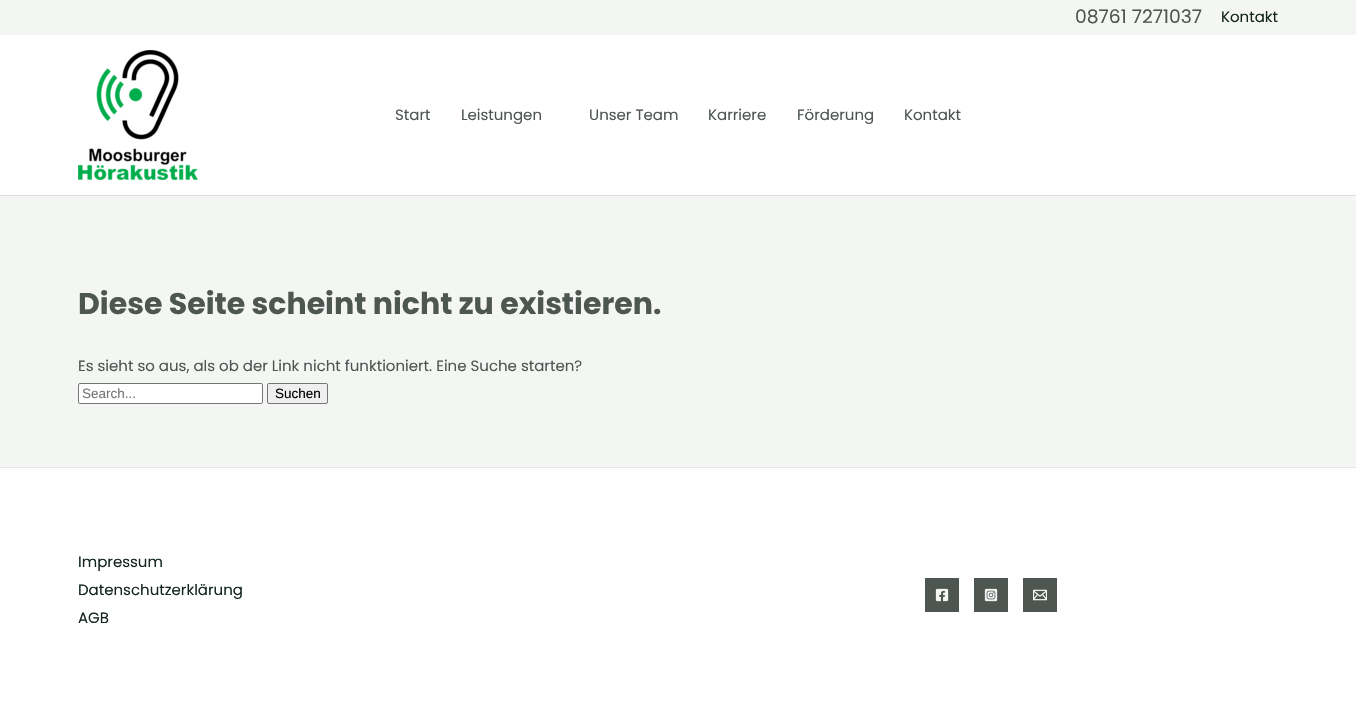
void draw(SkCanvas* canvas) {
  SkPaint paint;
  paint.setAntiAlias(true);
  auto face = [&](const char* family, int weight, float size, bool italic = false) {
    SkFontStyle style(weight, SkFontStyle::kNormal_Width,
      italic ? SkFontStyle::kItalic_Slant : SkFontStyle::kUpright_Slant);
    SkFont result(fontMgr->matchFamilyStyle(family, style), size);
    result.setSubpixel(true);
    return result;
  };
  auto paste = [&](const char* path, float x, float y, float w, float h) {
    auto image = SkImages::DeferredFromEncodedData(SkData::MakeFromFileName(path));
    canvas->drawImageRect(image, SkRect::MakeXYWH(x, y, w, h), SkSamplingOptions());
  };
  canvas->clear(0xfff4f6f4);
  paint.setColor(0xffffffff);
  canvas->drawRect(SkRect::MakeXYWH(0, 35, 1356, 160), paint);
  paint.setColor(0xffdddddd);
  canvas->drawRect(SkRect::MakeXYWH(0, 195, 1356, 1), paint);
  paste("img/1.png", 78, 50, 120, 130);
  paint.setColor(0xffffffff);
  canvas->drawRoundRect(SkRect::MakeXYWH(78.5f, 383.5f, 184, 20), 1.5f, 1.5f, paint);
  paint.setStroke(true);
  paint.setStrokeWidth(1);
  paint.setColor(0xff767676);
  canvas->drawRoundRect(SkRect::MakeXYWH(78.5f, 383.5f, 184, 20), 1.5f, 1.5f, paint);
  paint.setStroke(false);
  paint.setColor(0xffefefef);
  canvas->drawRoundRect(SkRect::MakeXYWH(267.5f, 383.5f, 60, 20), 1.5f, 1.5f, paint);
  paint.setStroke(true);
  paint.setColor(0xff767676);
  canvas->drawRoundRect(SkRect::MakeXYWH(267.5f, 383.5f, 60, 20), 1.5f, 1.5f, paint);
  paint.setStroke(false);
  {
    const struct { float x, y, w, h; SkColor color; } items[] = {
      {0, 468, 1356, 242, 0xffffffff},
      {0, 467, 1356, 1, 0xffe6e6e6},
      {925, 578, 34, 34, 0xff4e5652},
    };
    for (auto [x, y, w, h, color] : items) {
      paint.setColor(color);
      canvas->drawRect(SkRect::MakeXYWH(x, y, w, h), paint);
    }
  }
  paste("img/2.png", 935, 588, 14, 14);
  canvas->drawRect(SkRect::MakeXYWH(974, 578, 34, 34), paint);
  paste("img/3.png", 984, 588, 14, 14);
  canvas->drawRect(SkRect::MakeXYWH(1023, 578, 34, 34), paint);
  paste("img/4.png", 1033, 589, 14, 12);
  auto f0 = face("Poppins", 400, 18.75f);
  canvas->drawString("08761 7271037", 1075, 23, f0, paint);
  auto f1 = face("Poppins", 400, 15);
  paint.setColor(0xff14261c);
  canvas->drawString("Kontakt", 1221, 22, f1, paint);
  paint.setColor(0xff4e5652);
  {
    const struct { const char* s; float x, y; } items[] = {
      {"Start", 395, 120},
      {"Leistungen", 461, 120},
      {"Unser Team", 589, 120},
      {"Karriere", 708, 120},
      {"Förderung", 797, 120},
      {"Kontakt", 904, 120},
    };
    for (auto [s, x, y] : items) {
      canvas->drawString(s, x, y, f1, paint);
    }
  }
  auto f2 = face("Poppins", 700, 30);
  canvas->drawString("Diese Seite scheint nicht zu existieren.", 78, 314, f2, paint);
  canvas->drawString("Es sieht so aus, als ob der Link nicht funktioniert. Eine Suche starten?", 78, 371, f1, paint);
  auto f3 = face("Liberation Sans", 400, 13.5f);
  paint.setColor(0xff757575);
  canvas->drawString("Search...", 82, 398, f3, paint);
  paint.setColor(0xff000000);
  canvas->drawString("Suchen", 275, 398, f3, paint);
  paint.setColor(0xff14261c);
  {
    const struct { const char* s; float x, y; } items[] = {
      {"Impressum", 78, 567},
      {"Datenschutzerklärung", 78, 595},
      {"AGB", 78, 623},
    };
    for (auto [s, x, y] : items) {
      canvas->drawString(s, x, y, f1, paint);
    }
  }
}
